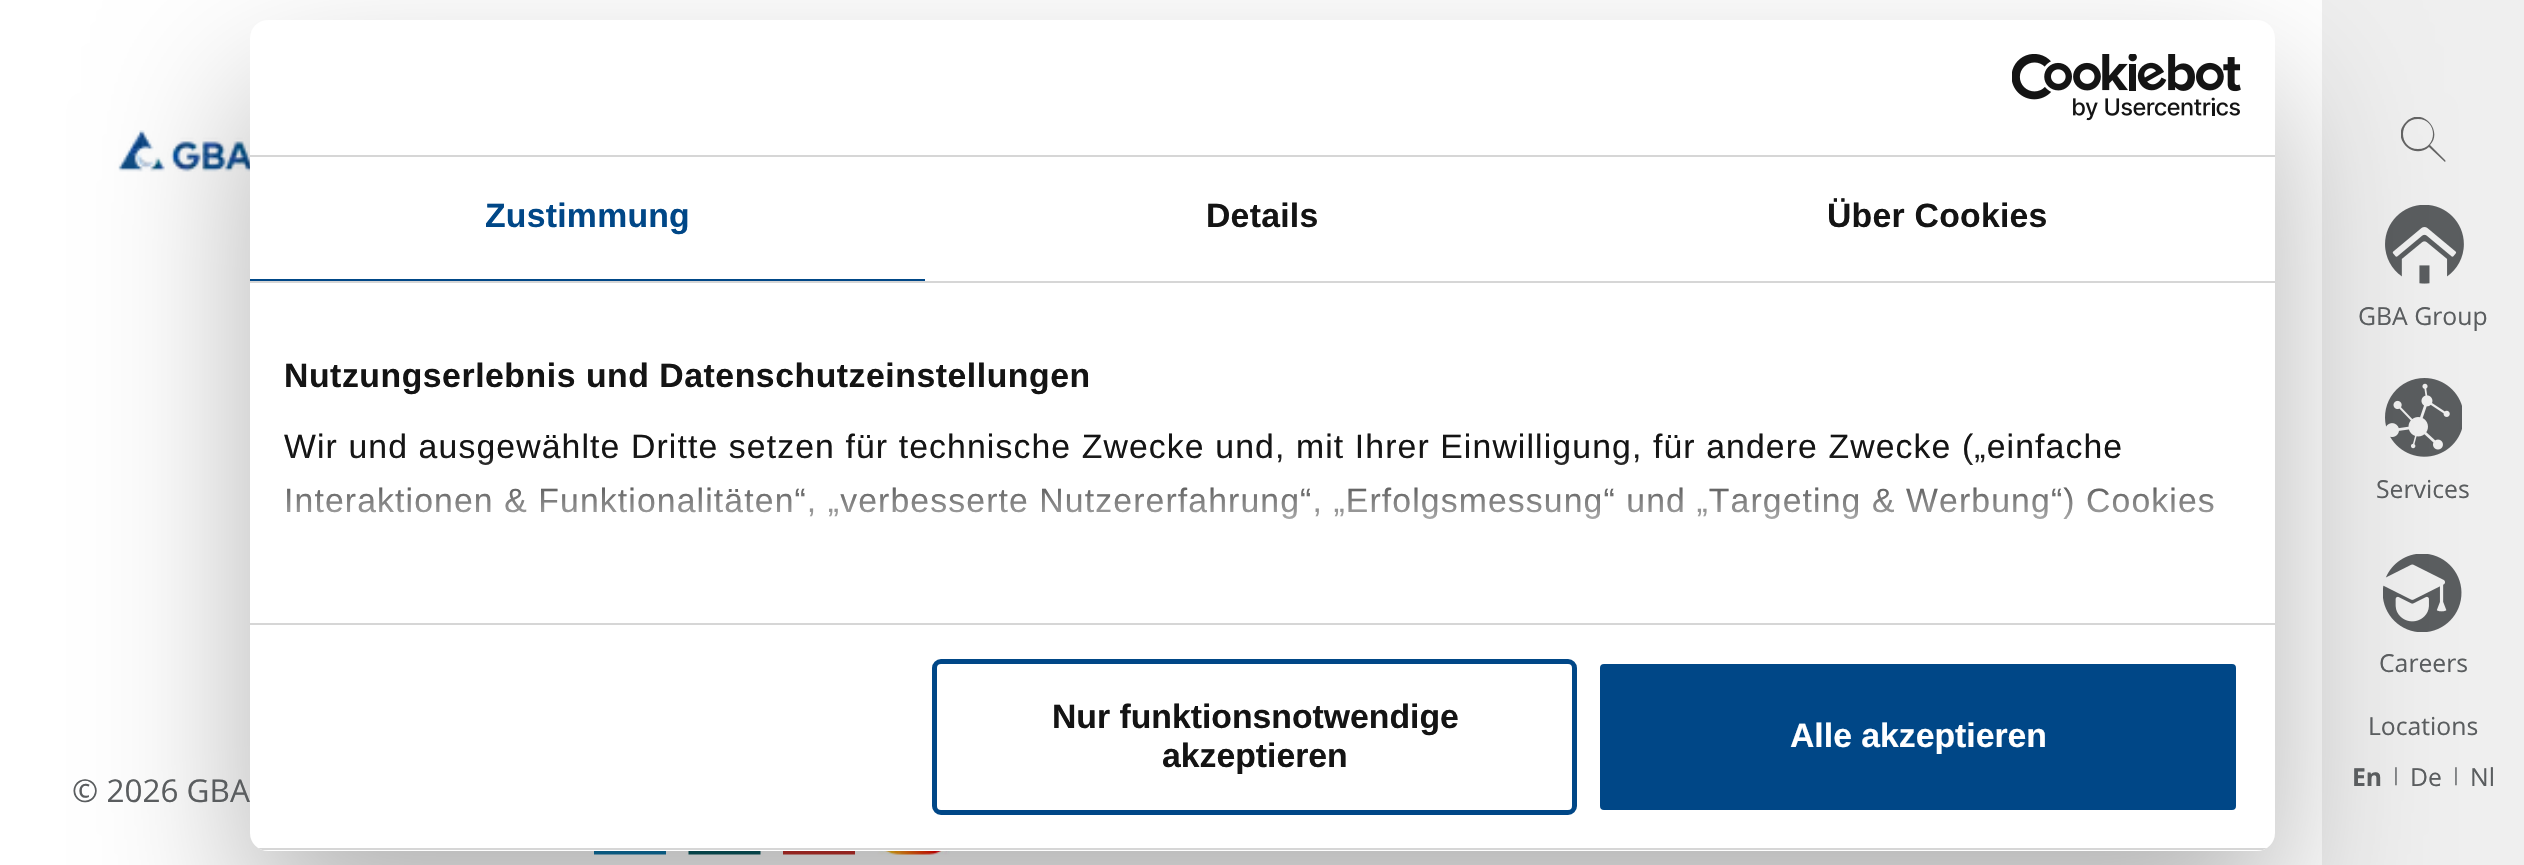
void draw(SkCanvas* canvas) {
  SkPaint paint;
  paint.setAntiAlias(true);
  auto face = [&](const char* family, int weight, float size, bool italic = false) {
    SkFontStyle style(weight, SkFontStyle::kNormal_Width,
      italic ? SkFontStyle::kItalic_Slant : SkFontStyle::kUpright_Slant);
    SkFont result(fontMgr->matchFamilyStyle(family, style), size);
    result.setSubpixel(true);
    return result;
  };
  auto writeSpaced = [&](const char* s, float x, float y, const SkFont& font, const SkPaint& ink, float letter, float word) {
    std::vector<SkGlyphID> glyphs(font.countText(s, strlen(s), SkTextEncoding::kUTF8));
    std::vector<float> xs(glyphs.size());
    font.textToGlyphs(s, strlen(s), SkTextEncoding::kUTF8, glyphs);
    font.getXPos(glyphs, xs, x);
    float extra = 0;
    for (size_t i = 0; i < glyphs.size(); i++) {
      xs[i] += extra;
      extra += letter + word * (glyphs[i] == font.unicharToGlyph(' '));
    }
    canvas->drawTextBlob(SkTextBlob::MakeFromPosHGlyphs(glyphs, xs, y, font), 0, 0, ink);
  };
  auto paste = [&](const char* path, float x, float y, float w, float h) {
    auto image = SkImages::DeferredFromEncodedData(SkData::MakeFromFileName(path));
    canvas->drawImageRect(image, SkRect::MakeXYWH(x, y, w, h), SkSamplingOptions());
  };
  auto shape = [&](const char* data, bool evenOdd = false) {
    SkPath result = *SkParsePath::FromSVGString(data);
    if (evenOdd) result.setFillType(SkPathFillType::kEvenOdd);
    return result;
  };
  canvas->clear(0xffffffff);
  paste("img/2.png", 118, 130, 132, 42);
  paint.setColor(0xffefefef);
  canvas->drawRect(SkRect::MakeXYWH(2322, 0, 202, 865), paint);
  canvas->save();
  canvas->clipRect(SkRect::MakeXYWH(2401, 117, 45, 45));
  paint.setColor(0xff646464);
  canvas->drawPath(shape("M2445 160L2430 145C2444 130 2421 106 2406 122C2390 138 2413 161 2429 147L2445 162C2445 162 2446 161 2445 160ZM2418 149C2398 149 2398 119 2418 119C2438 119 2438 149 2418 149Z"), paint);
  canvas->restore();
  paste("img/3.png", 2385, 205, 79, 79);
  paste("img/4.png", 2385, 378, 77, 79);
  paste("img/5.png", 2383, 554, 79, 78);
  paste("img/6.png", 594, 851, 72, 4);
  paste("img/7.png", 688, 851, 73, 4);
  paste("img/8.png", 783, 851, 72, 4);
  paste("img/9.png", 877, 851, 73, 4);
  paint.setColor(0x4d000000);
  paint.setMaskFilter(SkMaskFilter::MakeBlur(kNormal_SkBlurStyle, 76.5f));
  canvas->drawRoundRect(SkRect::MakeXYWH(250, 92, 2025, 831), 18, 18, paint);
  paint.setMaskFilter(nullptr);
  paint.setColor(0xffffffff);
  canvas->drawRoundRect(SkRect::MakeXYWH(250, 20, 2025, 831), 18, 18, paint);
  paint.setColor(0xffd6d6d6);
  canvas->drawRect(SkRect::MakeXYWH(250, 155, 2025, 2), paint);
  paste("img/1.png", 2012, 54, 229, 67);
  {
    const struct { float x, y, w, h; SkColor color; } items[] = {
      {250, 281, 2025, 2, 0xffd6d6d6},
      {250, 279, 675, 2, 0xff004787},
      {250, 623, 2025, 2, 0xffd6d6d6},
    };
    for (auto [x, y, w, h, color] : items) {
      paint.setColor(color);
      canvas->drawRect(SkRect::MakeXYWH(x, y, w, h), paint);
    }
  }
  canvas->save();
  canvas->clipPath(shape("M268 20H2257C2267 20 2275 28 2275 38V833C2275 843 2267 851 2257 851H268C258 851 250 843 250 833V38C250 28 258 20 268 20Z"), true);
  canvas->drawRect(SkRect::MakeXYWH(250, 848, 2025, 2), paint);
  canvas->restore();
  paint.setStroke(true);
  paint.setStrokeWidth(5);
  paint.setColor(0xff004787);
  canvas->drawRoundRect(SkRect::MakeXYWH(934.5f, 661.5f, 640, 151), 6.5f, 6.5f, paint);
  paint.setStroke(false);
  canvas->drawRoundRect(SkRect::MakeXYWH(1597.5f, 661.5f, 641, 151), 6.5f, 6.5f, paint);
  paint.setStroke(true);
  paint.setColor(0xffffffff);
  canvas->drawRoundRect(SkRect::MakeXYWH(1597.5f, 661.5f, 641, 151), 6.5f, 6.5f, paint);
  auto f0 = face("Liberation Sans", 700, 33.75f);
  paint.setStroke(false);
  paint.setColor(0xff004787);
  writeSpaced("Zustimmung", 485, 227, f0, paint, 0.25f, 0);
  paint.setColor(0xff141414);
  writeSpaced("Details", 1206, 227, f0, paint, 0.25f, 0);
  writeSpaced("Über Cookies", 1827, 227, f0, paint, 0.25f, 0);
  writeSpaced("Nutzungserlebnis und Datenschutzeinstellungen", 284, 387, f0, paint, 0.55f, 0);
  auto f1 = face("Liberation Sans", 400, 33.75f);
  writeSpaced("Wir und ausgewählte Dritte setzen für technische Zwecke und, mit Ihrer Einwilligung, für andere Zwecke („einfache", 284, 458, f1, paint, 1.12f, 0);
  writeSpaced("Interaktionen & Funktionalitäten“, „verbesserte Nutzererfahrung“, „Erfolgsmessung“ und „Targeting & Werbung“) Cookies", 284, 512, f1, paint, 1.12f, 0);
  {
    const SkColor colors[] = {0xffffffff, 0xccffffff, 0x00ffffff};
    const float stops[] = {0, 0.5f, 1};
    const SkPoint ends[] = {{1248, 622}, {1248, 453}};
    paint.setShader(SkGradientShader::MakeLinear(ends, colors, stops, 3, SkTileMode::kClamp));
    paint.setAlpha(255);
  }
  canvas->drawRect(SkRect::MakeXYWH(286, 455, 1928, 64), paint);
  paint.setShader(nullptr);
  paint.setColor(0xff141414);
  canvas->drawString("Nur funktionsnotwendige", 1052, 728, f0, paint);
  canvas->drawString("akzeptieren", 1162, 767, f0, paint);
  paint.setColor(0xffffffff);
  canvas->drawString("Alle akzeptieren", 1790, 747, f0, paint);
  auto f2 = face("Open Sans", 400, 24.75f);
  paint.setColor(0xff5a5d5f);
  {
    const struct { const char* s; float x, y; } items[] = {
      {"GBA Group", 2358, 325},
      {"Services", 2376, 498},
      {"Careers", 2379, 672},
      {"Locations", 2368, 735},
    };
    for (auto [s, x, y] : items) {
      canvas->drawString(s, x, y, f2, paint);
    }
  }
  auto f3 = face("Open Sans", 700, 24.75f);
  canvas->drawString("En", 2352, 786, f3, paint);
  auto f4 = face("Open Sans", 400, 18);
  canvas->drawString("|", 2391, 781, f4, paint);
  canvas->drawString("De", 2410, 786, f2, paint);
  canvas->drawString("|", 2451, 781, f4, paint);
  canvas->drawString("Nl", 2470, 786, f2, paint);
  auto f5 = face("Open Sans", 400, 31.5f);
  canvas->drawString("© 2026 GBA", 72, 802, f5, paint);
}
